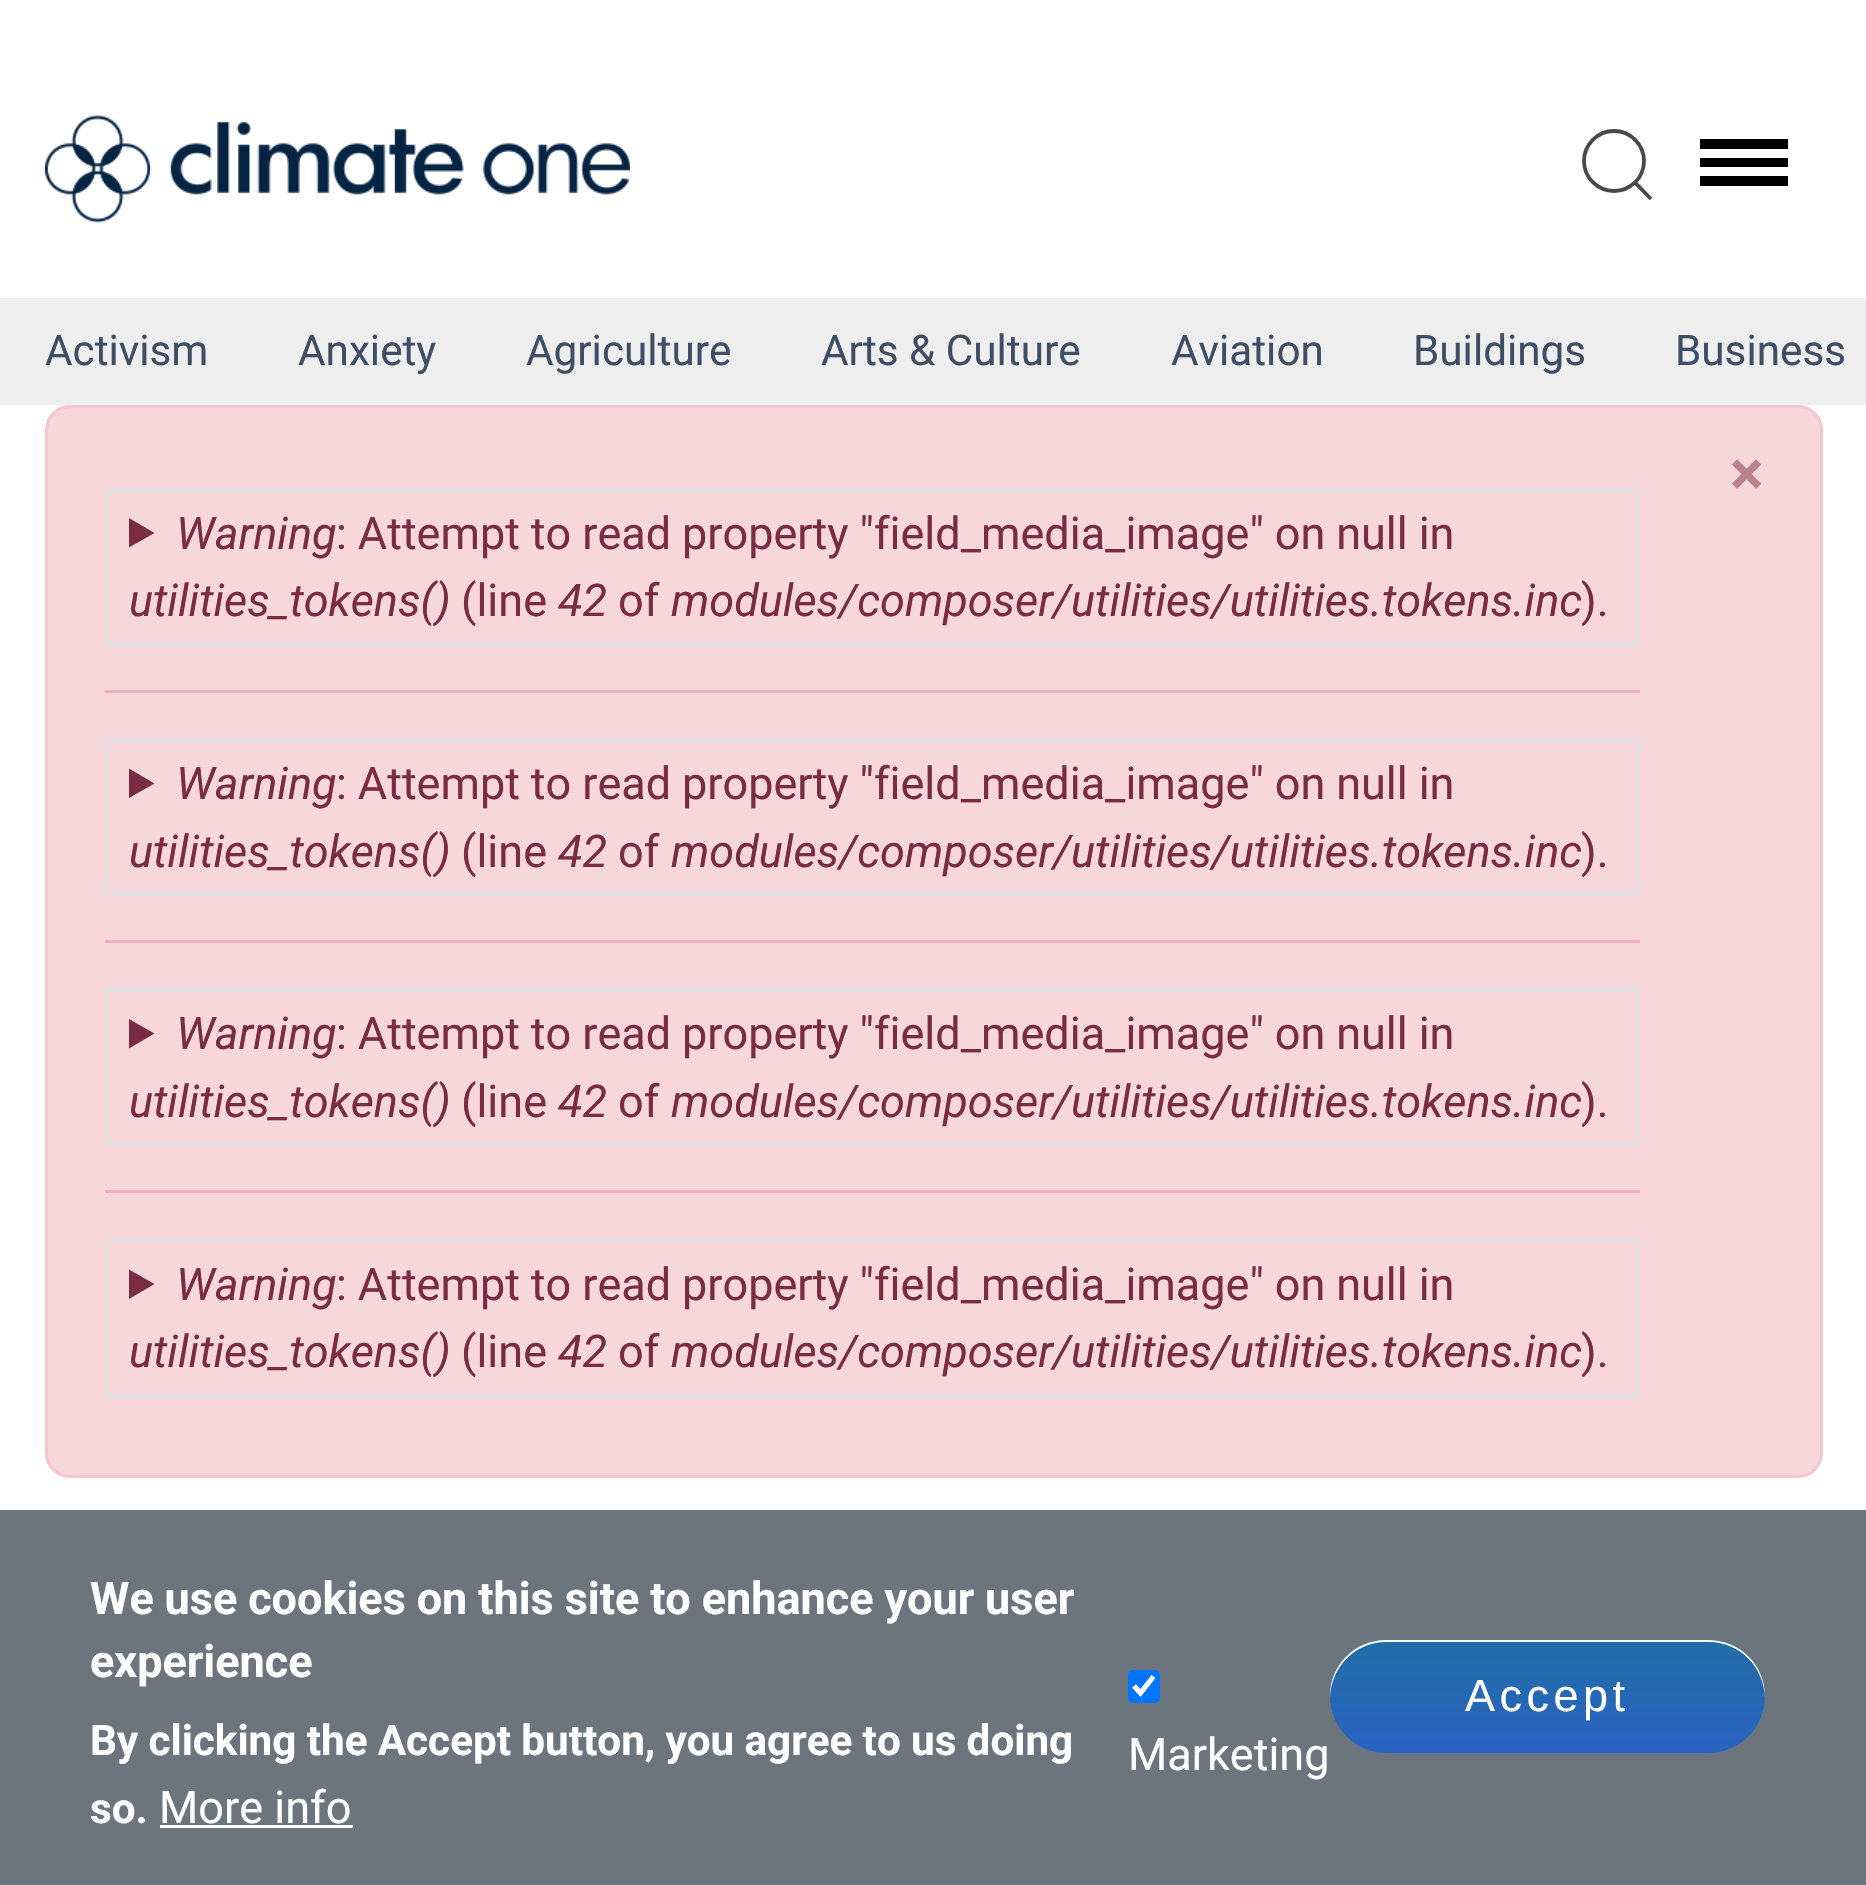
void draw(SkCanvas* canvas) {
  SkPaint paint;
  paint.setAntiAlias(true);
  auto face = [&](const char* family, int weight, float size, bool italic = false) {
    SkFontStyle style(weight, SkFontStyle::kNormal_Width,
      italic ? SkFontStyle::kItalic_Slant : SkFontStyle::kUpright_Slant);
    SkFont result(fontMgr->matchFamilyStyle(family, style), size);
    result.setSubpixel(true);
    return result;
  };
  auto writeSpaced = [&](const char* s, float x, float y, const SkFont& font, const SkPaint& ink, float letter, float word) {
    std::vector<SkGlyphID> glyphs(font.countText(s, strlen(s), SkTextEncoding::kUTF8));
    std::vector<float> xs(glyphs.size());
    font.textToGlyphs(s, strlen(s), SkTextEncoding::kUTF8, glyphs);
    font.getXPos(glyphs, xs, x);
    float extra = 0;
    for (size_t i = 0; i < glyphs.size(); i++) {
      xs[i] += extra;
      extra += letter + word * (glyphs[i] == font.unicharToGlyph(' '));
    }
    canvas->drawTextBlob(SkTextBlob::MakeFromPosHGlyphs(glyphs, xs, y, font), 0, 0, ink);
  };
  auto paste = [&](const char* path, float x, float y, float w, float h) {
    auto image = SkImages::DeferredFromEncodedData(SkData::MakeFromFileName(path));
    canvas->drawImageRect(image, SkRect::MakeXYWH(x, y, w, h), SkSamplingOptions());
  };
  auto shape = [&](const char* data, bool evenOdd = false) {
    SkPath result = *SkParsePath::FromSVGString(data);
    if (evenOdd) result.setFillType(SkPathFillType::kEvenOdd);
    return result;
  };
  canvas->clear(0xffffffff);
  paste("img/1.png", 45, 115, 585, 108);
  paint.setStroke(true);
  paint.setStrokeWidth(3.8f);
  paint.setColor(0xff494949);
  canvas->drawCircle(1614, 161, 30, paint);
  canvas->drawPath(shape("M1651 199L1635 182.5"), paint);
  paint.setStroke(false);
  {
    const struct { float x, y, w, h; SkColor color; } items[] = {
      {1700, 139, 88, 10, 0xff000000},
      {1700, 158, 88, 9, 0xff000000},
      {1700, 176, 88, 10, 0xff000000},
      {0, 298, 1866, 107, 0xffeeeeee},
    };
    for (auto [x, y, w, h, color] : items) {
      paint.setColor(color);
      canvas->drawRect(SkRect::MakeXYWH(x, y, w, h), paint);
    }
  }
  paint.setColor(0xfff8d7da);
  canvas->drawRoundRect(SkRect::MakeXYWH(46.5f, 406.5f, 1775, 1070), 23.5f, 23.5f, paint);
  paint.setStroke(true);
  paint.setStrokeWidth(3);
  paint.setColor(0xfff5c6cb);
  canvas->drawRoundRect(SkRect::MakeXYWH(46.5f, 406.5f, 1775, 1070), 23.5f, 23.5f, paint);
  paint.setColor(0xffdee2e6);
  canvas->drawRect(SkRect::MakeXYWH(106.5f, 489.5f, 1532, 154), paint);
  paint.setStroke(false);
  paint.setColor(0xff792c43);
  canvas->drawPath(shape("M129 518L154.5 533L129 547.5Z"), paint);
  paint.setColor(0xfff1b0b7);
  canvas->drawRect(SkRect::MakeXYWH(105, 690, 1535, 3), paint);
  paint.setStroke(true);
  paint.setColor(0xffdee2e6);
  canvas->drawRect(SkRect::MakeXYWH(106.5f, 739.5f, 1532, 154), paint);
  paint.setStroke(false);
  paint.setColor(0xff792c43);
  canvas->drawPath(shape("M129 768.5L154.5 783.5L129 798Z"), paint);
  paint.setColor(0xfff1b0b7);
  canvas->drawRect(SkRect::MakeXYWH(105, 940, 1535, 3), paint);
  paint.setStroke(true);
  paint.setColor(0xffdee2e6);
  canvas->drawRect(SkRect::MakeXYWH(106.5f, 989.5f, 1532, 154), paint);
  paint.setStroke(false);
  paint.setColor(0xff792c43);
  canvas->drawPath(shape("M129 1019L154.5 1033.5L129 1048.5Z"), paint);
  paint.setColor(0xfff1b0b7);
  canvas->drawRect(SkRect::MakeXYWH(105, 1190, 1535, 3), paint);
  paint.setStroke(true);
  paint.setColor(0xffdee2e6);
  canvas->drawRect(SkRect::MakeXYWH(106.5f, 1239.5f, 1532, 157), paint);
  paint.setStroke(false);
  paint.setColor(0xff792c43);
  canvas->drawPath(shape("M129 1269.5L154.5 1284L129 1299Z"), paint);
  paint.setColor(0xff6c757d);
  canvas->drawRect(SkRect::MakeXYWH(0, 1510, 1866, 375), paint);
  paint.setColor(0xffffffff);
  canvas->drawRect(SkRect::MakeXYWH(160, 1825, 193, 3), paint);
  {
    const SkColor colors[] = {0xff2a62c2, 0xff216da6};
    const float stops[] = {0, 1};
    const SkPoint ends[] = {{1548, 1753}, {1548, 1640}};
    paint.setShader(SkGradientShader::MakeLinear(ends, colors, stops, 2, SkTileMode::kClamp));
    paint.setAlpha(255);
  }
  canvas->drawRoundRect(SkRect::MakeXYWH(1330, 1640, 435, 113), 56.5f, 56.5f, paint);
  paint.setShader(nullptr);
  paint.setColor(0xffffffff);
  canvas->drawPath(shape("M1386 1642H1709C1740 1642 1764 1667 1765 1698V1696C1765 1665 1740 1640 1708 1640H1386C1355 1640 1330 1665 1330 1696V1698C1331 1667 1355 1642 1386 1642Z"), paint);
  paint.setColor(0xff0075ff);
  canvas->drawRoundRect(SkRect::MakeXYWH(1128, 1670, 32, 33), 5, 5, paint);
  paint.setStroke(true);
  paint.setStrokeWidth(5.2f);
  paint.setColor(0xffffffff);
  canvas->drawPath(shape("M1134 1686L1140.5 1693L1153.5 1676.5"), paint);
  auto f0 = face("Roboto", 400, 42.25f);
  paint.setStroke(false);
  paint.setColor(0xff3d4e66);
  {
    const struct { const char* s; float x, y; } items[] = {
      {"Activism", 45, 365},
      {"Anxiety", 298, 365},
      {"Agriculture", 526, 365},
      {"Arts & Culture", 821, 365},
      {"Aviation", 1171, 365},
      {"Buildings", 1413, 365},
      {"Business", 1675, 365},
    };
    for (auto [s, x, y] : items) {
      canvas->drawString(s, x, y, f0, paint);
    }
  }
  auto f1 = face("Roboto", 700, 63);
  paint.setColor(0xffb9828f);
  canvas->drawString("×", 1730, 495, f1, paint);
  auto f2 = face("Roboto", 400, 45, true);
  paint.setColor(0xff792c43);
  canvas->drawString("Warning", 176, 549, f2, paint);
  auto f3 = face("Roboto", 400, 45);
  writeSpaced(": Attempt to read property \"field_media_image\" on null in", 336, 549, f3, paint, 0, -0.25f);
  canvas->drawString("utilities_tokens()", 129, 616, f2, paint);
  canvas->drawString("(line", 461, 616, f3, paint);
  canvas->drawString("42", 558, 616, f2, paint);
  canvas->drawString("of", 618, 616, f3, paint);
  canvas->drawString("modules/composer/utilities/utilities.tokens.inc", 671, 616, f2, paint);
  canvas->drawString(").", 1581, 616, f3, paint);
  canvas->drawString("Warning", 176, 799, f2, paint);
  writeSpaced(": Attempt to read property \"field_media_image\" on null in", 336, 799, f3, paint, 0, -0.25f);
  canvas->drawString("utilities_tokens()", 129, 867, f2, paint);
  canvas->drawString("(line", 461, 867, f3, paint);
  canvas->drawString("42", 558, 867, f2, paint);
  canvas->drawString("of", 618, 867, f3, paint);
  canvas->drawString("modules/composer/utilities/utilities.tokens.inc", 671, 867, f2, paint);
  canvas->drawString(").", 1581, 867, f3, paint);
  canvas->drawString("Warning", 176, 1049, f2, paint);
  writeSpaced(": Attempt to read property \"field_media_image\" on null in", 336, 1049, f3, paint, 0, -0.25f);
  canvas->drawString("utilities_tokens()", 129, 1117, f2, paint);
  canvas->drawString("(line", 461, 1117, f3, paint);
  canvas->drawString("42", 558, 1117, f2, paint);
  canvas->drawString("of", 618, 1117, f3, paint);
  canvas->drawString("modules/composer/utilities/utilities.tokens.inc", 671, 1117, f2, paint);
  canvas->drawString(").", 1581, 1117, f3, paint);
  canvas->drawString("Warning", 176, 1300, f2, paint);
  writeSpaced(": Attempt to read property \"field_media_image\" on null in", 336, 1300, f3, paint, 0, -0.25f);
  canvas->drawString("utilities_tokens()", 129, 1367, f2, paint);
  canvas->drawString("(line", 461, 1367, f3, paint);
  canvas->drawString("42", 558, 1367, f2, paint);
  canvas->drawString("of", 618, 1367, f3, paint);
  canvas->drawString("modules/composer/utilities/utilities.tokens.inc", 671, 1367, f2, paint);
  canvas->drawString(").", 1581, 1367, f3, paint);
  auto f4 = face("Roboto", 700, 45);
  paint.setColor(0xffffffff);
  writeSpaced("We use cookies on this site to enhance your user", 90, 1614, f4, paint, 0, -0.25f);
  canvas->drawString("experience", 90, 1677, f4, paint);
  auto f5 = face("Roboto", 700, 42.25f);
  writeSpaced("By clicking the Accept button, you agree to us doing", 90, 1755, f5, paint, 0, -0.25f);
  canvas->drawString("so.", 90, 1823, f5, paint);
  canvas->drawString("More info", 159, 1823, f3, paint);
  auto f6 = face("Liberation Sans", 400, 45);
  writeSpaced("Accept", 1465, 1711, f6, paint, 4.5f, 0);
  canvas->drawString("Marketing", 1128, 1770, f3, paint);
}
